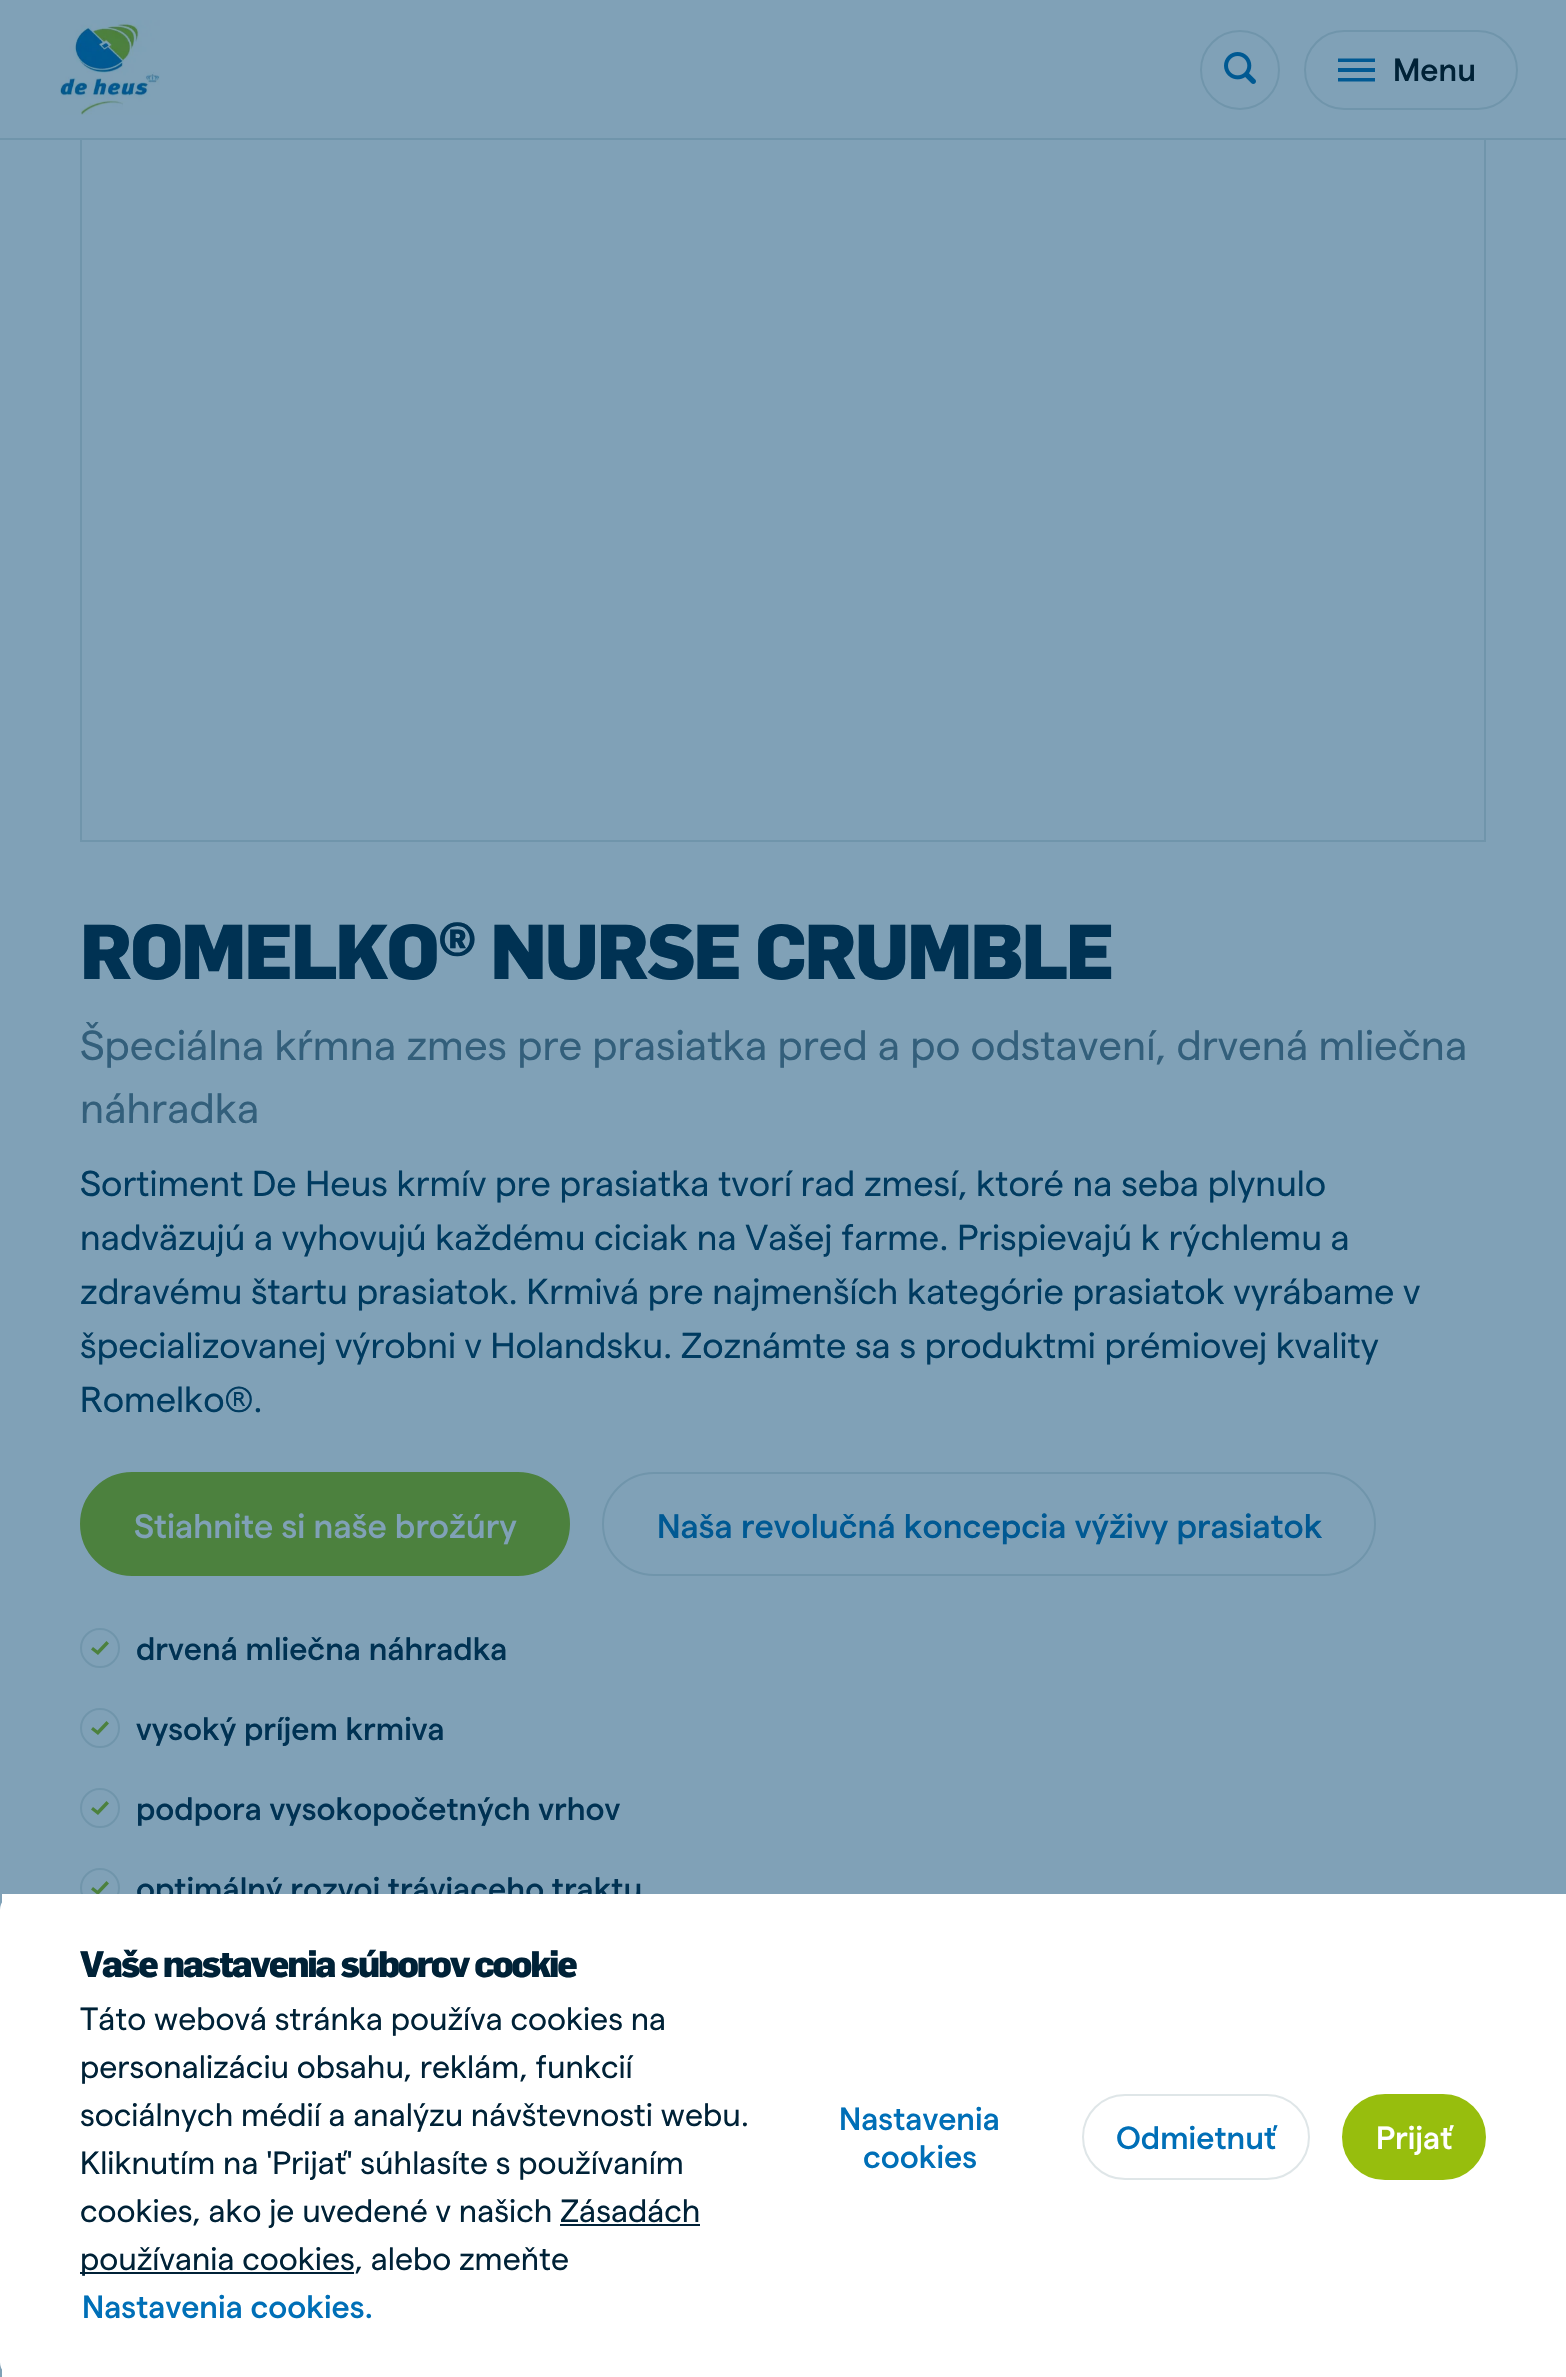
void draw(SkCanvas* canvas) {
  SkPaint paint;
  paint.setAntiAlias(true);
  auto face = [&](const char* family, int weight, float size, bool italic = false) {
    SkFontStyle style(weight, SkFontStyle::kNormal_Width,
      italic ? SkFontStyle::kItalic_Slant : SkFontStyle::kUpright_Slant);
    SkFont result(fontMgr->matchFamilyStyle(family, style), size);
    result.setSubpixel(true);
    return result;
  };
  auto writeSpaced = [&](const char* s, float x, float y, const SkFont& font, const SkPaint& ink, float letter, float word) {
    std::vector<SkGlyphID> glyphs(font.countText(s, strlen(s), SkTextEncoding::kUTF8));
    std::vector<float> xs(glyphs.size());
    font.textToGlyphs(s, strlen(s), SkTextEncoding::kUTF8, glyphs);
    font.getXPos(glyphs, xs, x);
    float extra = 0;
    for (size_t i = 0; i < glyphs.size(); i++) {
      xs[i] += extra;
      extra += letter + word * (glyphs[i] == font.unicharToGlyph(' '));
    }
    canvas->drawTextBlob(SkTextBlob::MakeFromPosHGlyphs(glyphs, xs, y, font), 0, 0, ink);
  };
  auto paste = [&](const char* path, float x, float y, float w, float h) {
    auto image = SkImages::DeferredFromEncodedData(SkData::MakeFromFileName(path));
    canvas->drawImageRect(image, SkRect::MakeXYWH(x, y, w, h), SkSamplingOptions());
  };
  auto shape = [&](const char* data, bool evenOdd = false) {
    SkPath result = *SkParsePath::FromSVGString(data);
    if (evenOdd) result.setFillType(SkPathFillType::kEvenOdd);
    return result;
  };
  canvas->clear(0xff80a1b7);
  paint.setStroke(true);
  paint.setStrokeWidth(2);
  paint.setColor(0xff7095ab);
  canvas->drawRect(SkRect::MakeXYWH(81, -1, 1404, 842), paint);
  paint.setStroke(false);
  paint.setColor(0xff80a1b7);
  canvas->drawRect(SkRect::MakeXYWH(80, 0, 1406, 138), paint);
  paint.setColor(0xff7095ab);
  canvas->drawRect(SkRect::MakeXYWH(0, 138, 1566, 2), paint);
  paste("img/1.png", 60, 20, 100, 95);
  paint.setStroke(true);
  canvas->drawCircle(1240, 70, 39, paint);
  paste("img/2.png", 1224, 52, 32, 32);
  canvas->drawRoundRect(SkRect::MakeXYWH(1305, 31, 212, 78), 39, 39, paint);
  paint.setStroke(false);
  paint.setColor(0xff005993);
  canvas->drawPath(shape("M1375 58.5V62H1338V58.5ZM1375 68V72H1338V68ZM1375 81.5V78H1338V81.5Z", true), paint);
  paint.setColor(0xff4c813e);
  canvas->drawRoundRect(SkRect::MakeXYWH(81, 1473, 488, 102), 51, 51, paint);
  paint.setStroke(true);
  canvas->drawRoundRect(SkRect::MakeXYWH(81, 1473, 488, 102), 51, 51, paint);
  paint.setColor(0xff7095ab);
  canvas->drawRoundRect(SkRect::MakeXYWH(603, 1473, 772, 102), 51, 51, paint);
  canvas->drawCircle(100, 1648, 19, paint);
  paint.setStroke(false);
  paint.setColor(0xff4c813e);
  canvas->drawPath(shape("M106.5 1641L97.5 1650.5L93 1647L91 1649.5L98 1655L109 1643.5Z"), paint);
  paint.setStroke(true);
  paint.setColor(0xff7095ab);
  canvas->drawCircle(100, 1728, 19, paint);
  paint.setStroke(false);
  paint.setColor(0xff4c813e);
  canvas->drawPath(shape("M106.5 1721L97.5 1730.5L93 1727L91 1729.5L98 1735L109 1723.5Z"), paint);
  paint.setStroke(true);
  paint.setColor(0xff7095ab);
  canvas->drawCircle(100, 1808, 19, paint);
  paint.setStroke(false);
  paint.setColor(0xff4c813e);
  canvas->drawPath(shape("M106.5 1801L97.5 1810.5L93 1807L91 1809.5L98 1815L109 1803.5Z"), paint);
  paint.setStroke(true);
  paint.setColor(0xff7095ab);
  canvas->drawCircle(100, 1888, 19, paint);
  paint.setStroke(false);
  paint.setColor(0xff4c813e);
  canvas->drawPath(shape("M106.5 1881L97.5 1890.5L93 1887L91 1889.5L98 1895L109 1883.5Z"), paint);
  auto f0 = face("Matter", 500, 32);
  paint.setColor(0xff002237);
  canvas->drawString("Menu", 1393, 81, f0, paint);
  auto f1 = face("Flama", 800, 76);
  paint.setColor(0xff003253);
  writeSpaced("ROMELKO® NURSE CRUMBLE", 80, 979, f1, paint, -2.25f, 0);
  auto f2 = face("Matter", 400, 42);
  paint.setColor(0xff335f7b);
  canvas->drawString("Špeciálna kŕmna zmes pre prasiatka pred a po odstavení, drvená mliečna", 80, 1060, f2, paint);
  canvas->drawString("náhradka", 80, 1123, f2, paint);
  auto f3 = face("Matter", 400, 36);
  paint.setColor(0xff003b60);
  {
    const struct { const char* s; float x, y; } items[] = {
      {"Sortiment De Heus krmív pre prasiatka tvorí rad zmesí, ktoré na seba plynulo", 80, 1196},
      {"nadväzujú a vyhovujú každému ciciak na Vašej farme. Prispievajú k rýchlemu a", 80, 1250},
      {"zdravému štartu prasiatok. Krmivá pre najmenších kategórie prasiatok vyrábame v", 80, 1304},
      {"špecializovanej výrobni v Holandsku. Zoznámte sa s produktmi prémiovej kvality", 80, 1358},
      {"Romelko®.", 80, 1412},
    };
    for (auto [s, x, y] : items) {
      canvas->drawString(s, x, y, f3, paint);
    }
  }
  auto f4 = face("Matter", 500, 34);
  paint.setColor(0xff80a1b7);
  canvas->drawString("Stiahnite si naše brožúry", 134, 1538, f4, paint);
  paint.setColor(0xff005993);
  canvas->drawString("Naša revolučná koncepcia výživy prasiatok", 657, 1538, f4, paint);
  paint.setColor(0xff003253);
  {
    const struct { const char* s; float x, y; } items[] = {
      {"drvená mliečna náhradka", 136, 1660},
      {"vysoký príjem krmiva", 136, 1740},
      {"podpora vysokopočetných vrhov", 136, 1820},
      {"optimálný rozvoj tráviaceho traktu", 136, 1900},
    };
    for (auto [s, x, y] : items) {
      canvas->drawString(s, x, y, f0, paint);
    }
  }
  paint.setColor(0xffffffff);
  canvas->drawRoundRect(SkRect::MakeXYWH(0, 1894, 1566, 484), 16, 16, paint);
  canvas->drawRect(SkRect::MakeXYWH(2, 1894, 1564, 483), paint);
  auto f5 = face("Flama", 800, 36);
  paint.setColor(0xff002237);
  writeSpaced("Vaše nastavenia súborov cookie", 80, 1977, f5, paint, -2.25f, 0);
  auto f6 = face("Matter", 400, 32);
  {
    const struct { const char* s; float x, y; } items[] = {
      {"Táto webová stránka používa cookies na", 80, 2030},
      {"personalizáciu obsahu, reklám, funkcií", 80, 2078},
      {"sociálnych médií a analýzu návštevnosti webu.", 80, 2126},
      {"Kliknutím na 'Prijať' súhlasíte s používaním", 80, 2174},
      {"cookies, ako je uvedené v našich Zásadách", 80, 2222},
    };
    for (auto [s, x, y] : items) {
      canvas->drawString(s, x, y, f6, paint);
    }
  }
  paint.setColor(0xff002137);
  canvas->drawRect(SkRect::MakeXYWH(560, 2224, 140, 2), paint);
  canvas->drawRect(SkRect::MakeXYWH(80, 2272, 274, 2), paint);
  paint.setColor(0xff002237);
  canvas->drawString("používania cookies, alebo zmeňte", 80, 2270, f6, paint);
  paint.setColor(0xff006fb7);
  {
    const struct { const char* s; float x, y; } items[] = {
      {"Nastavenia cookies.", 82, 2318},
      {"Nastavenia", 839, 2130},
      {"cookies", 863, 2168},
    };
    for (auto [s, x, y] : items) {
      canvas->drawString(s, x, y, f0, paint);
    }
  }
  paint.setStroke(true);
  paint.setColor(0xffdfe6e8);
  canvas->drawRoundRect(SkRect::MakeXYWH(1083, 2095, 226, 84), 42, 42, paint);
  paint.setStroke(false);
  paint.setColor(0xff006fb7);
  canvas->drawString("Odmietnuť", 1116, 2149, f0, paint);
  paint.setColor(0xff97be0d);
  canvas->drawRoundRect(SkRect::MakeXYWH(1343, 2095, 142, 84), 42, 42, paint);
  paint.setStroke(true);
  canvas->drawRoundRect(SkRect::MakeXYWH(1343, 2095, 142, 84), 42, 42, paint);
  paint.setStroke(false);
  paint.setColor(0xffffffff);
  canvas->drawString("Prijať", 1376, 2149, f0, paint);
}
